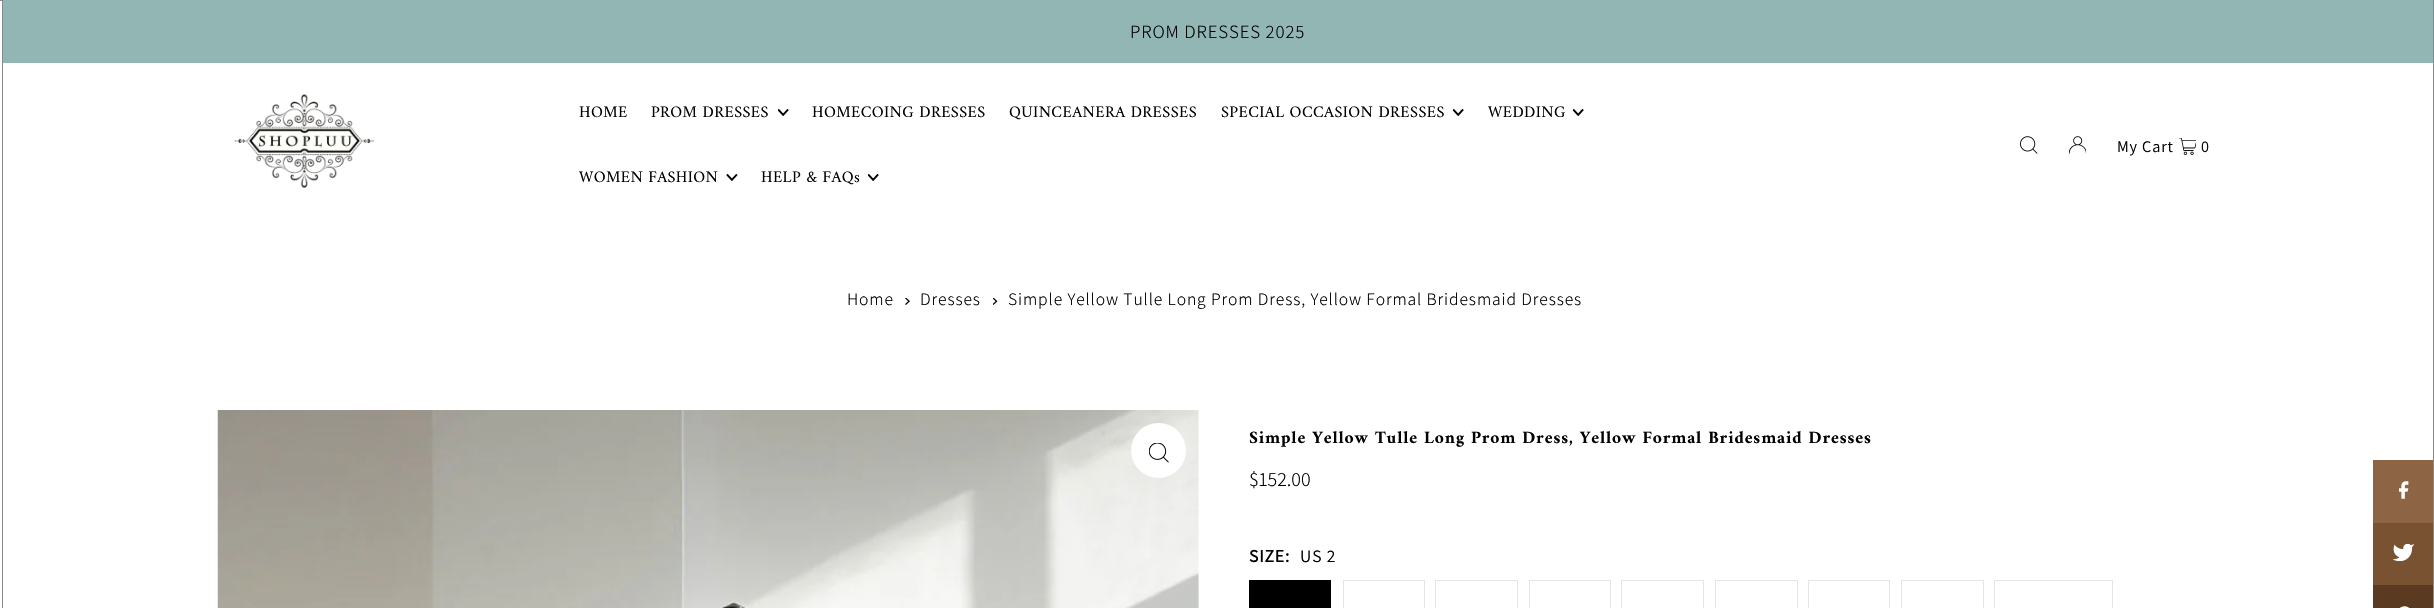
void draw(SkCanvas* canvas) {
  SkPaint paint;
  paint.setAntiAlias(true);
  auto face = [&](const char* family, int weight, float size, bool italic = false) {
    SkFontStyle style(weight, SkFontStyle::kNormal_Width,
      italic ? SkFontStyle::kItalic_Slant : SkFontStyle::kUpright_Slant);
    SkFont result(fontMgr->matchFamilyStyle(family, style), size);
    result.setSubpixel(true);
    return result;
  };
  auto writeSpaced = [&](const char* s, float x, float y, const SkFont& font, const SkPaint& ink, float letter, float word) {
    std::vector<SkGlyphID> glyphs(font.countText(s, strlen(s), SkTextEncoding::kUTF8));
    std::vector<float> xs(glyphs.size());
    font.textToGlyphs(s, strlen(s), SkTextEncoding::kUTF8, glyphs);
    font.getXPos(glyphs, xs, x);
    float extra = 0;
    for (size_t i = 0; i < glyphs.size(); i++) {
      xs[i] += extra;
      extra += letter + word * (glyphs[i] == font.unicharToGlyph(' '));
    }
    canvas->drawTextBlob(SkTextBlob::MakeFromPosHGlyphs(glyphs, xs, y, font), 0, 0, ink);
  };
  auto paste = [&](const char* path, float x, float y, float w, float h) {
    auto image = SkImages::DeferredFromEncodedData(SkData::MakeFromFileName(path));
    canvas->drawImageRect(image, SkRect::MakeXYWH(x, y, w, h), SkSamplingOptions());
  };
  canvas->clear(0xffffffff);
  paint.setStroke(true);
  paint.setStrokeWidth(1);
  paint.setColor(0xff888888);
  canvas->drawRect(SkRect::MakeXYWH(-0.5f, 0.5f, 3, 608), paint);
  paint.setStroke(false);
  paint.setColor(0xff91b6b3);
  canvas->drawRect(SkRect::MakeXYWH(3, 0, 2430, 63), paint);
  paste("img/1.png", 234, 94, 141, 94);
  paste("img/2.png", 778, 109, 11, 7);
  paste("img/2.png", 1453, 109, 11, 7);
  paste("img/2.png", 1573, 109, 11, 7);
  paste("img/3.png", 726, 174, 12, 7);
  paste("img/2.png", 868, 174, 11, 7);
  paste("img/4.png", 2020, 136, 18, 18);
  paste("img/5.png", 2069, 136, 17, 18);
  paste("img/6.png", 2179, 138, 17, 17);
  paste("img/7.png", 905, 298, 5, 7);
  paste("img/8.png", 993, 298, 5, 7);
  paste("img/9.png", 217, 410, 982, 198);
  paint.setColor(0xffffffff);
  canvas->drawCircle(1158.5f, 450.5f, 27.5f, paint);
  paste("img/10.png", 1149, 443, 20, 20);
  paint.setColor(0xff000000);
  canvas->drawRect(SkRect::MakeXYWH(1249, 580, 82, 28), paint);
  paint.setStroke(true);
  paint.setColor(0xffe5e5e5);
  canvas->drawRect(SkRect::MakeXYWH(1343.5f, 580.5f, 81, 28), paint);
  canvas->drawRect(SkRect::MakeXYWH(1435.5f, 580.5f, 82, 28), paint);
  canvas->drawRect(SkRect::MakeXYWH(1529.5f, 580.5f, 81, 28), paint);
  canvas->drawRect(SkRect::MakeXYWH(1621.5f, 580.5f, 82, 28), paint);
  canvas->drawRect(SkRect::MakeXYWH(1715.5f, 580.5f, 82, 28), paint);
  canvas->drawRect(SkRect::MakeXYWH(1808.5f, 580.5f, 81, 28), paint);
  canvas->drawRect(SkRect::MakeXYWH(1901.5f, 580.5f, 82, 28), paint);
  canvas->drawRect(SkRect::MakeXYWH(1994.5f, 580.5f, 118, 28), paint);
  paint.setStroke(false);
  paint.setColor(0xff8d6544);
  canvas->drawRect(SkRect::MakeXYWH(2373, 460, 60, 63), paint);
  paste("img/11.png", 2399, 481, 10, 18);
  paint.setColor(0xff795232);
  canvas->drawRect(SkRect::MakeXYWH(2373, 523, 60, 62), paint);
  paste("img/12.png", 2393, 544, 21, 17);
  paint.setColor(0xff5a3b21);
  canvas->drawRect(SkRect::MakeXYWH(2373, 585, 60, 23), paint);
  paste("img/13.png", 2400, 606, 10, 2);
  paint.setStroke(true);
  paint.setColor(0xff888888);
  canvas->drawRect(SkRect::MakeXYWH(2433.5f, 0.5f, 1, 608), paint);
  auto f0 = face("Assistant", 300, 18.75f);
  paint.setStroke(false);
  paint.setColor(0xff000000);
  writeSpaced("PROM DRESSES 2025", 1130, 38, f0, paint, 0.88f, 0);
  auto f1 = face("Amiri", 400, 16.25f);
  {
    const struct { const char* s; float x, y; } items[] = {
      {"HOME", 579, 117},
      {"PROM DRESSES", 651, 117},
      {"HOMECOING DRESSES", 812, 117},
      {"QUINCEANERA DRESSES", 1009, 117},
      {"SPECIAL OCCASION DRESSES", 1221, 117},
      {"WEDDING", 1488, 117},
      {"WOMEN FASHION", 579, 182},
      {"HELP & FAQs", 761, 182},
    };
    for (auto [s, x, y] : items) {
      writeSpaced(s, x, y, f1, paint, 0.4f, 0);
    }
  }
  auto f2 = face("Assistant", 400, 16.25f);
  writeSpaced("My Cart", 2117, 152, f2, paint, 0.88f, 0);
  writeSpaced("0", 2201, 152, f2, paint, 0.88f, 0);
  auto f3 = face("Assistant", 300, 17.5f);
  {
    const struct { const char* s; float x, y; } items[] = {
      {"Home", 847, 305},
      {"Dresses", 920, 305},
      {"Simple Yellow Tulle Long Prom Dress, Yellow Formal Bridesmaid Dresses", 1008, 305},
    };
    for (auto [s, x, y] : items) {
      writeSpaced(s, x, y, f3, paint, 0.88f, 0);
    }
  }
  auto f4 = face("Amiri", 700, 17.5f);
  writeSpaced("Simple Yellow Tulle Long Prom Dress, Yellow Formal Bridesmaid Dresses", 1249, 443, f4, paint, 0.88f, 0);
  auto f5 = face("Assistant", 300, 20);
  canvas->drawString("$152.00", 1249, 486, f5, paint);
  auto f6 = face("Assistant", 700, 17.5f);
  writeSpaced("SIZE:", 1249, 562, f6, paint, 0.88f, 0);
  auto f7 = face("Assistant", 400, 17.5f);
  writeSpaced("US 2", 1300, 562, f7, paint, 0.88f, 0);
}
